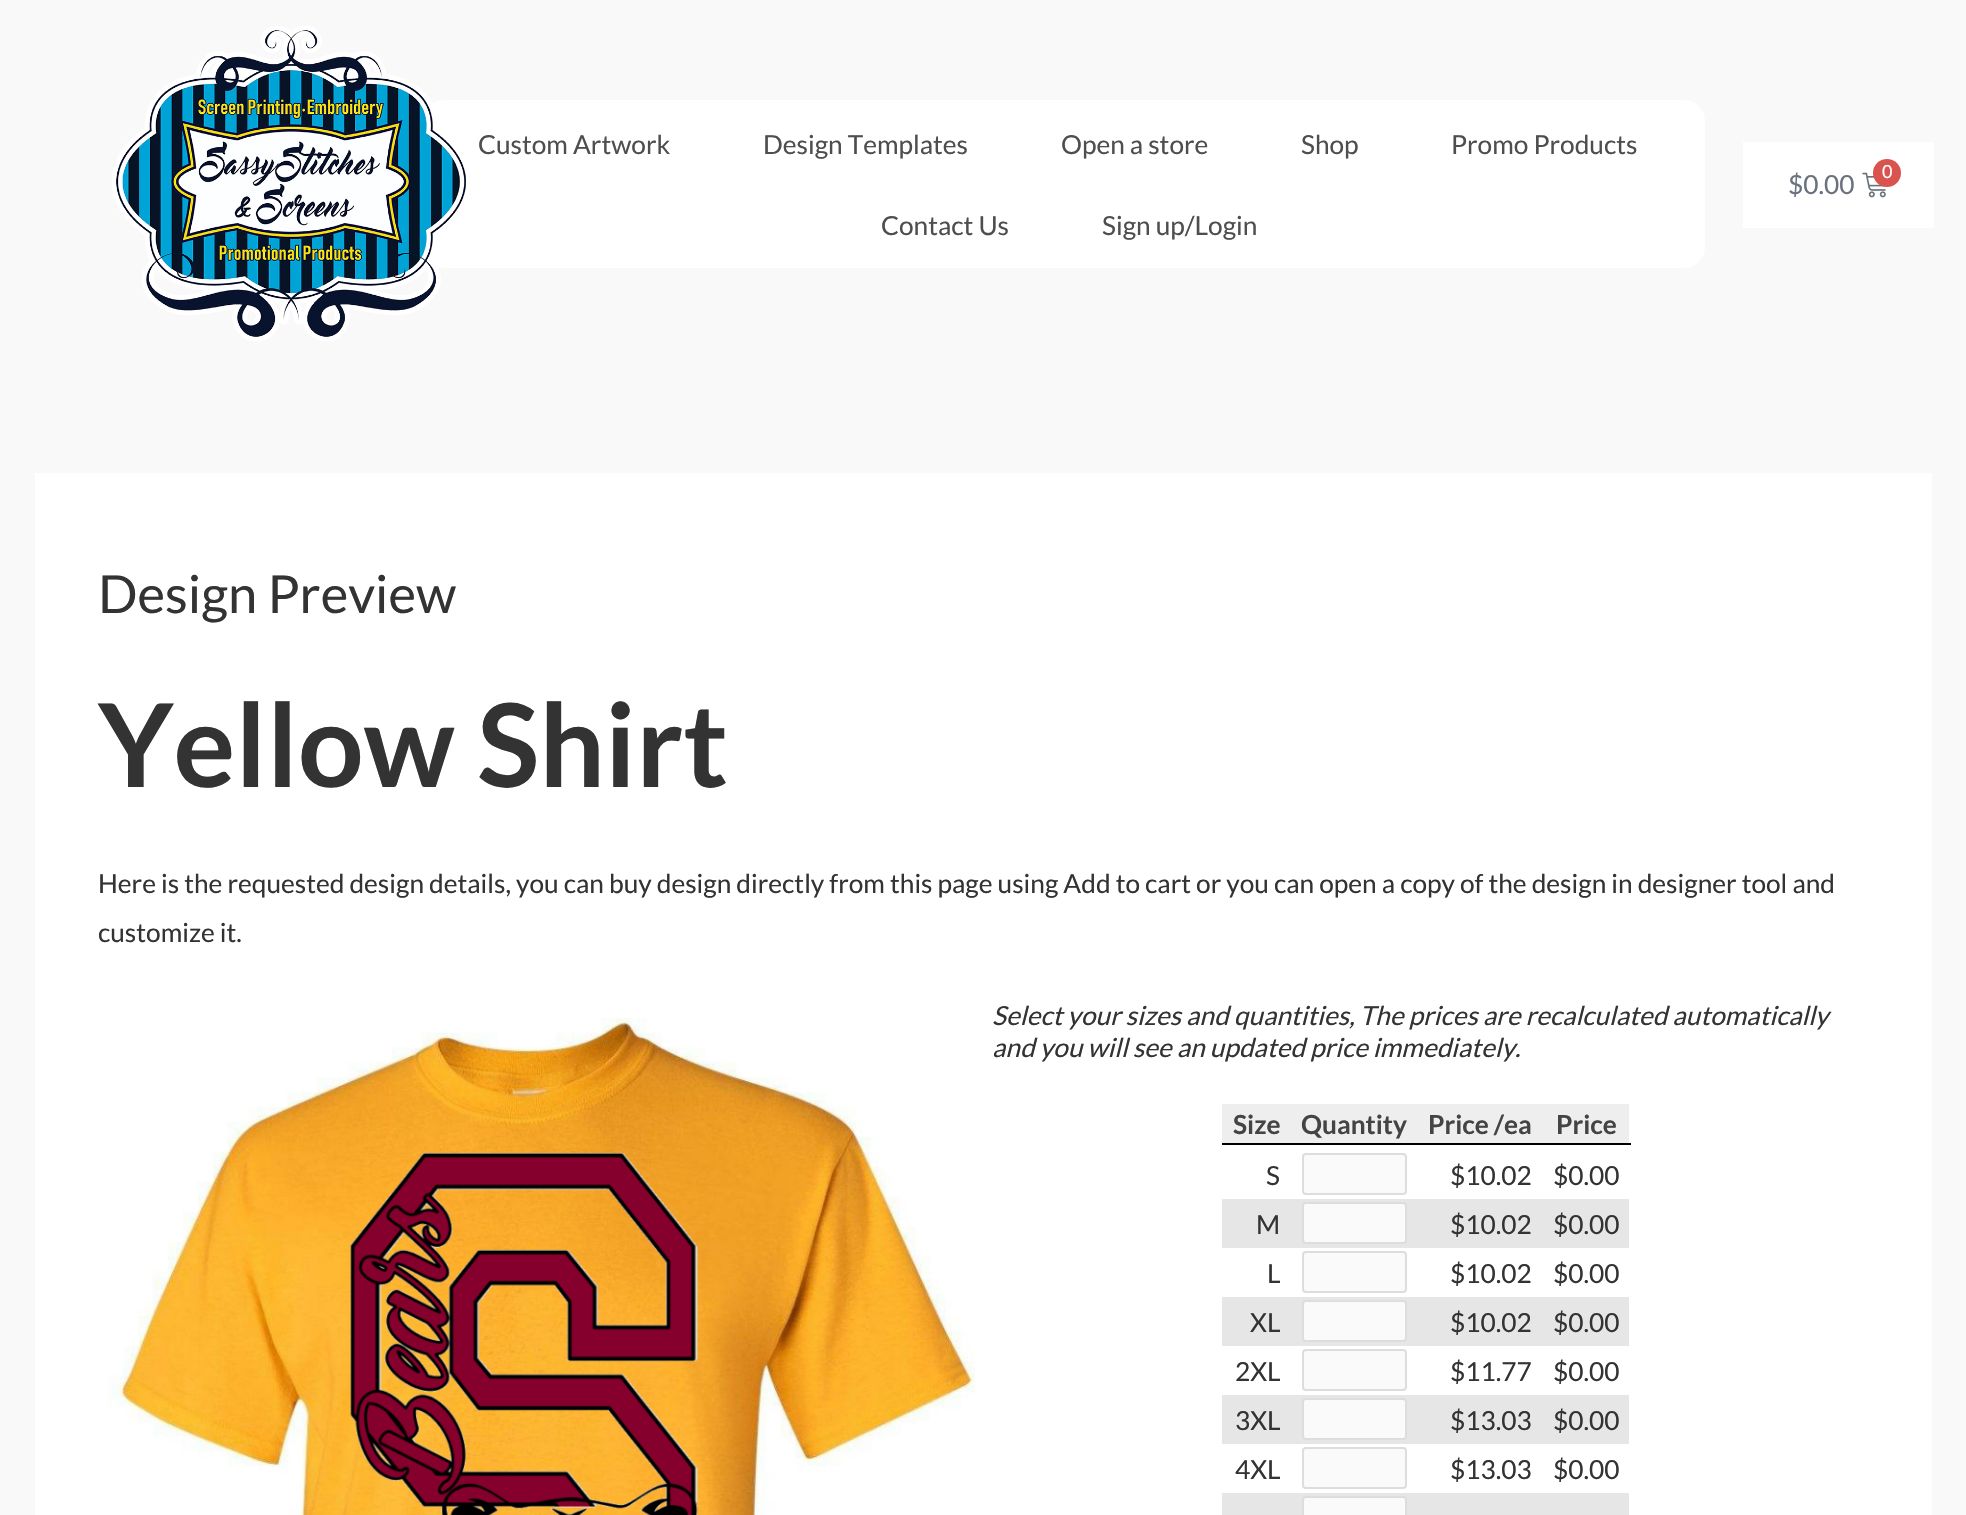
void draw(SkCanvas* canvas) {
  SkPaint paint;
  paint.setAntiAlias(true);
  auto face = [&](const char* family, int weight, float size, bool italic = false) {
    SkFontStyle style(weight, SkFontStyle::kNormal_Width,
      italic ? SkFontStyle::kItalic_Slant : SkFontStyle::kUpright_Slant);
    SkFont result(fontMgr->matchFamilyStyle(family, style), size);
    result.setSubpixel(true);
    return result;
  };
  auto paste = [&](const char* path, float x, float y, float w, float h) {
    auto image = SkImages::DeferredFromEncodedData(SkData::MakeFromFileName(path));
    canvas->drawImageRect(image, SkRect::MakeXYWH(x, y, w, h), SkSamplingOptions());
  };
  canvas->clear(0xfff9f9f9);
  paint.setColor(0xffffffff);
  canvas->drawRoundRect(SkRect::MakeXYWH(422, 100, 1283, 168), 21, 21, paint);
  paste("img/1.png", 112, 26, 354, 315);
  canvas->drawRect(SkRect::MakeXYWH(1743, 142, 191, 86), paint);
  paste("img/2.png", 1862, 172, 24, 26);
  paint.setColor(0xffd9534f);
  canvas->drawCircle(1887, 173, 14, paint);
  paint.setColor(0xffffffff);
  canvas->drawRect(SkRect::MakeXYWH(35, 473, 1897, 1042), paint);
  paste("img/3.png", 108, 1018, 867, 497);
  paint.setColor(0xffeeeeee);
  canvas->drawRect(SkRect::MakeXYWH(1222, 1104, 407, 39), paint);
  paint.setColor(0xff000000);
  canvas->drawRect(SkRect::MakeXYWH(1222, 1143, 409, 2), paint);
  paint.setColor(0xfffafafa);
  canvas->drawRoundRect(SkRect::MakeXYWH(1303, 1154, 103, 40), 3, 3, paint);
  paint.setStroke(true);
  paint.setStrokeWidth(2);
  paint.setColor(0xffdddddd);
  canvas->drawRoundRect(SkRect::MakeXYWH(1303, 1154, 103, 40), 3, 3, paint);
  paint.setStroke(false);
  paint.setColor(0xffe6e6e6);
  canvas->drawRect(SkRect::MakeXYWH(1222, 1199, 407, 49), paint);
  paint.setColor(0xfffafafa);
  canvas->drawRoundRect(SkRect::MakeXYWH(1303, 1203, 103, 40), 3, 3, paint);
  paint.setStroke(true);
  paint.setColor(0xffdddddd);
  canvas->drawRoundRect(SkRect::MakeXYWH(1303, 1203, 103, 40), 3, 3, paint);
  paint.setStroke(false);
  paint.setColor(0xfffafafa);
  canvas->drawRoundRect(SkRect::MakeXYWH(1303, 1252, 103, 40), 3, 3, paint);
  paint.setStroke(true);
  paint.setColor(0xffdddddd);
  canvas->drawRoundRect(SkRect::MakeXYWH(1303, 1252, 103, 40), 3, 3, paint);
  paint.setStroke(false);
  paint.setColor(0xffe6e6e6);
  canvas->drawRect(SkRect::MakeXYWH(1222, 1297, 407, 49), paint);
  paint.setColor(0xfffafafa);
  canvas->drawRoundRect(SkRect::MakeXYWH(1303, 1301, 103, 40), 3, 3, paint);
  paint.setStroke(true);
  paint.setColor(0xffdddddd);
  canvas->drawRoundRect(SkRect::MakeXYWH(1303, 1301, 103, 40), 3, 3, paint);
  paint.setStroke(false);
  paint.setColor(0xfffafafa);
  canvas->drawRoundRect(SkRect::MakeXYWH(1303, 1350, 103, 40), 3, 3, paint);
  paint.setStroke(true);
  paint.setColor(0xffdddddd);
  canvas->drawRoundRect(SkRect::MakeXYWH(1303, 1350, 103, 40), 3, 3, paint);
  paint.setStroke(false);
  paint.setColor(0xffe6e6e6);
  canvas->drawRect(SkRect::MakeXYWH(1222, 1395, 407, 49), paint);
  paint.setColor(0xfffafafa);
  canvas->drawRoundRect(SkRect::MakeXYWH(1303, 1399, 103, 40), 3, 3, paint);
  paint.setStroke(true);
  paint.setColor(0xffdddddd);
  canvas->drawRoundRect(SkRect::MakeXYWH(1303, 1399, 103, 40), 3, 3, paint);
  paint.setStroke(false);
  paint.setColor(0xfffafafa);
  canvas->drawRoundRect(SkRect::MakeXYWH(1303, 1448, 103, 40), 3, 3, paint);
  paint.setStroke(true);
  paint.setColor(0xffdddddd);
  canvas->drawRoundRect(SkRect::MakeXYWH(1303, 1448, 103, 40), 3, 3, paint);
  paint.setStroke(false);
  paint.setColor(0xffe6e6e6);
  canvas->drawRect(SkRect::MakeXYWH(1222, 1493, 407, 22), paint);
  paint.setColor(0xfffafafa);
  canvas->drawRoundRect(SkRect::MakeXYWH(1303, 1497, 103, 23), 3, 3, paint);
  paint.setStroke(true);
  paint.setColor(0xffdddddd);
  canvas->drawRoundRect(SkRect::MakeXYWH(1303, 1497, 103, 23), 3, 3, paint);
  auto f0 = face("Lato", 400, 26.25f);
  paint.setStroke(false);
  paint.setColor(0xff4e4e4e);
  {
    const struct { const char* s; float x, y; } items[] = {
      {"Custom Artwork", 478, 154},
      {"Design Templates", 763, 154},
      {"Open a store", 1061, 154},
      {"Shop", 1301, 154},
      {"Promo Products", 1451, 154},
      {"Contact Us", 881, 235},
      {"Sign up/Login", 1102, 235},
    };
    for (auto [s, x, y] : items) {
      canvas->drawString(s, x, y, f0, paint);
    }
  }
  paint.setColor(0xff69727d);
  canvas->drawString("$0.00", 1788, 194, f0, paint);
  auto f1 = face("Lato", 400, 18);
  paint.setColor(0xffffffff);
  canvas->drawString("0", 1882, 178, f1, paint);
  auto f2 = face("Lato", 400, 52.5f);
  paint.setColor(0xff333333);
  canvas->drawString("Design Preview", 98, 613, f2, paint);
  auto f3 = face("Lato", 700, 115.5f);
  canvas->drawString("Yellow Shirt", 98, 787, f3, paint);
  canvas->drawString("Here is the requested design details, you can buy design directly from this page using Add to cart or you can open a copy of the design in designer tool and", 98, 893, f0, paint);
  canvas->drawString("customize it.", 98, 942, f0, paint);
  auto f4 = face("Lato", 400, 26.25f, true);
  canvas->drawString("Select your sizes and quantities, The prices are recalculated automatically", 992, 1025, f4, paint);
  canvas->drawString("and you will see an updated price immediately.", 992, 1057, f4, paint);
  auto f5 = face("Lato", 700, 26.25f);
  paint.setColor(0xff444444);
  {
    const struct { const char* s; float x, y; } items[] = {
      {"Size", 1233, 1134},
      {"Quantity", 1301, 1134},
      {"Price /ea", 1428, 1134},
      {"Price", 1556, 1134},
    };
    for (auto [s, x, y] : items) {
      canvas->drawString(s, x, y, f5, paint);
    }
  }
  paint.setColor(0xff333333);
  {
    const struct { const char* s; float x, y; } items[] = {
      {"S", 1266, 1185},
      {"$10.02", 1450, 1185},
      {"$0.00", 1553, 1185},
      {"M", 1256, 1234},
      {"$10.02", 1450, 1234},
      {"$0.00", 1553, 1234},
      {"L", 1267, 1283},
      {"$10.02", 1450, 1283},
      {"$0.00", 1553, 1283},
      {"XL", 1250, 1332},
      {"$10.02", 1450, 1332},
      {"$0.00", 1553, 1332},
      {"2XL", 1235, 1381},
      {"$11.77", 1450, 1381},
      {"$0.00", 1553, 1381},
      {"3XL", 1235, 1430},
      {"$13.03", 1450, 1430},
      {"$0.00", 1553, 1430},
      {"4XL", 1235, 1479},
      {"$13.03", 1450, 1479},
      {"$0.00", 1553, 1479},
    };
    for (auto [s, x, y] : items) {
      canvas->drawString(s, x, y, f0, paint);
    }
  }
}
